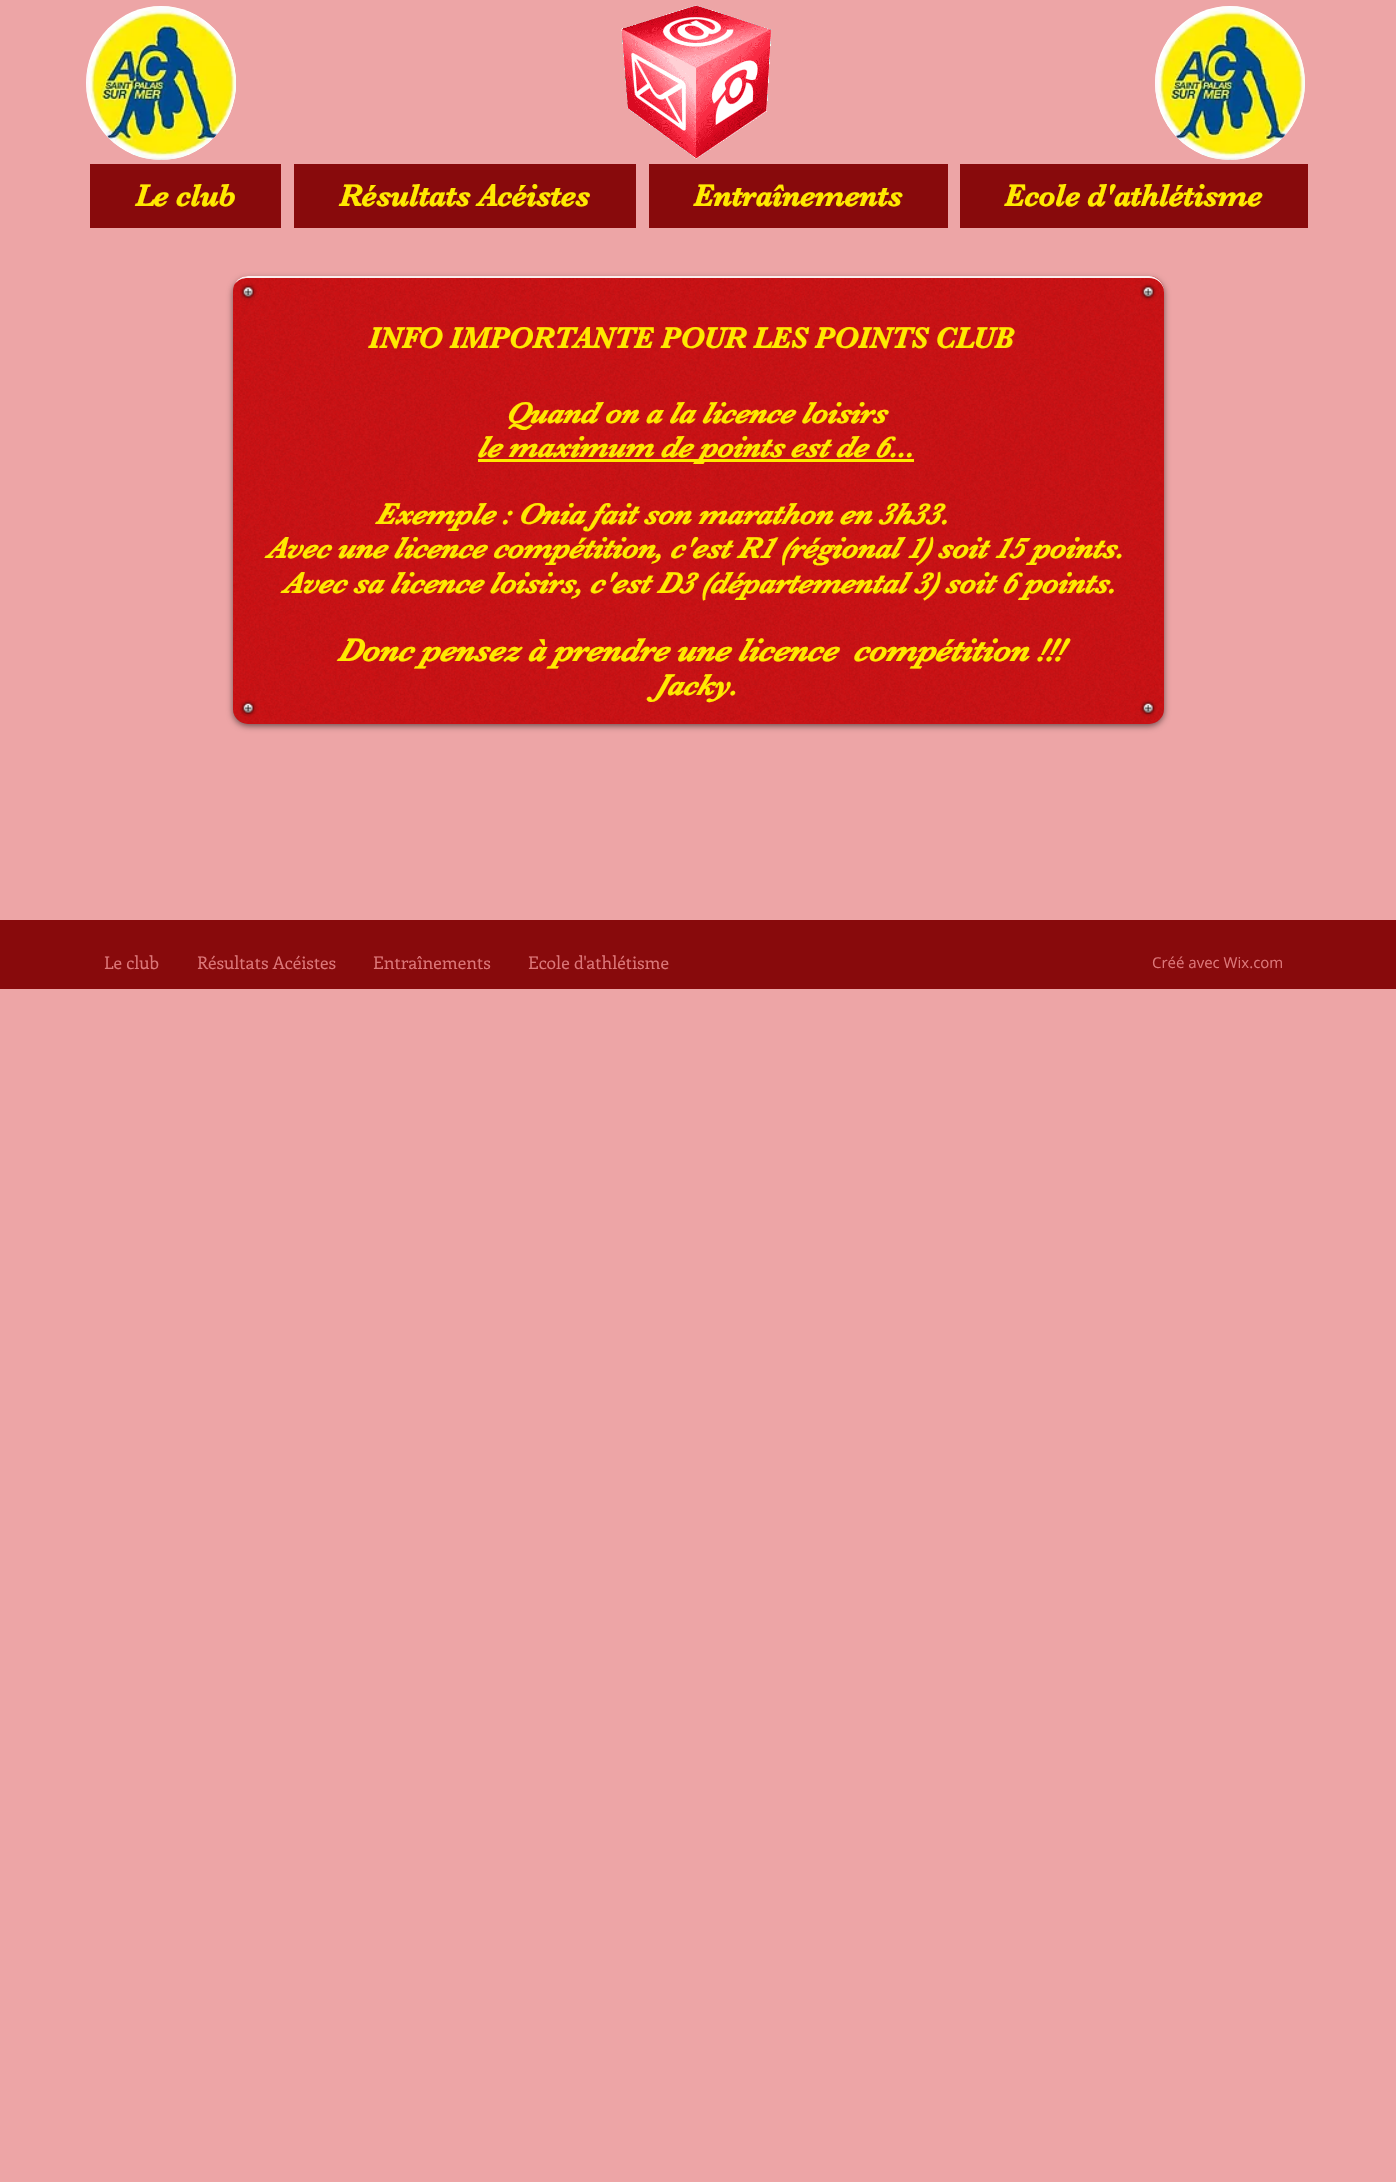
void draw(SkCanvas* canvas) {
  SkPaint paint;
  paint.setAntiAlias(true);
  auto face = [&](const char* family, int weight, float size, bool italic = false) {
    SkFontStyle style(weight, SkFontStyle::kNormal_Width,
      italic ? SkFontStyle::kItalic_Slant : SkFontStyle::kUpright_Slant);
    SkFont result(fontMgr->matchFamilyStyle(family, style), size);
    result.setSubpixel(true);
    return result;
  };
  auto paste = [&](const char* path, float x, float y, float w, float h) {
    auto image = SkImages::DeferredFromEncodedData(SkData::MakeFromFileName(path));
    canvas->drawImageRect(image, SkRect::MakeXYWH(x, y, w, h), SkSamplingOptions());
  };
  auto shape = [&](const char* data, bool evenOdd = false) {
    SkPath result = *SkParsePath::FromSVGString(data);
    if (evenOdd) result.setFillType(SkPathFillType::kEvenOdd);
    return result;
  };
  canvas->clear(0xffeda5a6);
  paint.setColor(0xffffffff);
  canvas->drawOval(SkRect::MakeXYWH(86, 6, 150, 154), paint);
  paste("img/1.png", 86, 6, 150, 154);
  paste("img/2.png", 621, 5, 151, 154);
  canvas->drawOval(SkRect::MakeXYWH(1155, 6, 150, 154), paint);
  paste("img/3.png", 1155, 6, 150, 154);
  {
    const struct { float x, y, w, h; SkColor color; } items[] = {
      {90, 164, 191, 64, 0xff880a0c},
      {294, 164, 342, 64, 0xff880a0c},
      {649, 164, 299, 64, 0xff880a0c},
      {960, 164, 348, 64, 0xff880a0c},
    };
    for (auto [x, y, w, h, color] : items) {
      paint.setColor(color);
      canvas->drawRect(SkRect::MakeXYWH(x, y, w, h), paint);
    }
  }
  paint.setColor(0x87000000);
  paint.setMaskFilter(SkMaskFilter::MakeBlur(kNormal_SkBlurStyle, 3));
  canvas->drawRoundRect(SkRect::MakeXYWH(233, 279, 931, 447), 15, 15, paint);
  paint.setMaskFilter(nullptr);
  paint.setColor(0xffcc1013);
  canvas->drawRoundRect(SkRect::MakeXYWH(233, 276, 931, 448), 15, 15, paint);
  paste("img/4.png", 233, 276, 931, 448);
  paint.setColor(0xebffffff);
  canvas->drawPath(shape("M248 278H1149C1157 278 1164 284 1164 292V291C1164 283 1157 276 1149 276H248C242 276 237 279 235 284C238 280 242 278 248 278Z"), paint);
  paste("img/5.png", 240, 283, 17, 18);
  paste("img/6.png", 1140, 283, 17, 18);
  paint.setColor(0xffffe900);
  canvas->drawRect(SkRect::MakeXYWH(478, 459, 436, 3), paint);
  paste("img/7.png", 240, 700, 17, 17);
  paste("img/8.png", 1140, 700, 17, 17);
  paint.setColor(0xff880a0c);
  canvas->drawRect(SkRect::MakeXYWH(0, 920, 1396, 69), paint);
  auto f0 = face("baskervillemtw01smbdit", 700, 31.25f);
  paint.setColor(0xffffe900);
  {
    const struct { const char* s; float x, y; } items[] = {
      {"Le club", 135, 206},
      {"Résultats Acéistes", 339, 206},
      {"Entraînements", 693, 206},
      {"Ecole d'athlétisme", 1004, 206},
    };
    for (auto [s, x, y] : items) {
      canvas->drawString(s, x, y, f0, paint);
    }
  }
  auto f1 = face("baskervillemtw01smbdit", 700, 30);
  canvas->drawString("INFO IMPORTANTE POUR LES POINTS CLUB", 368, 348, f1, paint);
  auto f2 = face("baskervillemtw01smbdit", 700, 30, true);
  {
    const struct { const char* s; float x, y; } items[] = {
      {"Quand on a la licence loisirs", 505, 423},
      {"le maximum de points est de 6...", 477, 457},
      {"Exemple : Onia fait son marathon en 3h33.", 375, 524},
      {"Avec une licence compétition, c'est R1 (régional 1) soit 15 points.", 267, 558},
      {"Avec sa licence loisirs, c'est D3 (départemental 3) soit 6 points.", 283, 593},
    };
    for (auto [s, x, y] : items) {
      canvas->drawString(s, x, y, f2, paint);
    }
  }
  auto f3 = face("baskervillemtw01smbdit", 700, 32.5f, true);
  canvas->drawString("Donc pensez à prendre une licence  compétition !!!", 337, 661, f3, paint);
  canvas->drawString("Jacky.", 655, 695, f2, paint);
  auto f4 = face("Enriqueta", 400, 17.5f);
  paint.setColor(0xffdd7779);
  {
    const struct { const char* s; float x, y; } items[] = {
      {"Le club", 104, 969},
      {"Résultats Acéistes", 197, 969},
      {"Entraînements", 373, 969},
      {"Ecole d'athlétisme", 528, 969},
    };
    for (auto [s, x, y] : items) {
      canvas->drawString(s, x, y, f4, paint);
    }
  }
  auto f5 = face("Open Sans", 400, 15);
  canvas->drawString("Créé avec Wix.com", 1152, 968, f5, paint);
}
